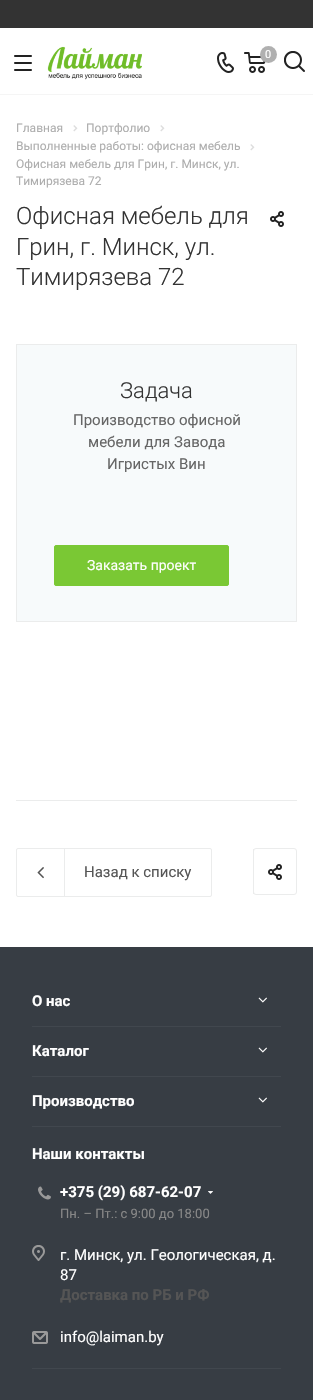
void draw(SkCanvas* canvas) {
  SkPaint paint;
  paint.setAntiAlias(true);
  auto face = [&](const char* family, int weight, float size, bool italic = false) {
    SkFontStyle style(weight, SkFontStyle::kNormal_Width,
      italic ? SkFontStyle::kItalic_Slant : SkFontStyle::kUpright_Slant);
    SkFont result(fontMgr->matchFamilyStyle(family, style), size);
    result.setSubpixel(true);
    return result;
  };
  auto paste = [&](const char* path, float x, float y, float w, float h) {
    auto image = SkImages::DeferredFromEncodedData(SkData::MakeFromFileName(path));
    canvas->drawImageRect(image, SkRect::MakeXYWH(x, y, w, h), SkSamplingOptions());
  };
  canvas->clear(0xffffffff);
  paint.setColor(0xff333333);
  canvas->drawRect(SkRect::MakeXYWH(0, 0, 313, 28), paint);
  paint.setColor(0xfff5f5f5);
  canvas->drawRect(SkRect::MakeXYWH(0, 94, 313, 1), paint);
  paste("img/1.png", 14, 55, 18, 16);
  paste("img/2.png", 47, 46, 95, 34);
  paste("img/3.png", 217, 52, 17, 21);
  paste("img/4.png", 244, 52, 22, 21);
  paint.setColor(0xffb0b0b0);
  canvas->drawCircle(268.5f, 54.5f, 8.5f, paint);
  paste("img/5.png", 284, 51, 21, 21);
  paste("img/6.png", 73, 125, 5, 7);
  paste("img/6.png", 160, 125, 5, 7);
  paste("img/6.png", 250, 144, 5, 7);
  paste("img/7.png", 270, 211, 14, 16);
  {
    const struct { float x, y, w, h; SkColor color; } items[] = {
      {17, 345, 279, 276, 0xfff7fafb},
      {16, 344, 281, 1, 0xffebecec},
      {296, 344, 1, 278, 0xffebecec},
      {16, 621, 281, 1, 0xffebecec},
      {16, 344, 1, 278, 0xffebecec},
    };
    for (auto [x, y, w, h, color] : items) {
      paint.setColor(color);
      canvas->drawRect(SkRect::MakeXYWH(x, y, w, h), paint);
    }
  }
  paint.setColor(0xff7ac834);
  canvas->drawRoundRect(SkRect::MakeXYWH(54.5f, 545.5f, 174, 40), 1.5f, 1.5f, paint);
  paint.setStroke(true);
  paint.setStrokeWidth(1);
  canvas->drawRoundRect(SkRect::MakeXYWH(54.5f, 545.5f, 174, 40), 1.5f, 1.5f, paint);
  paint.setStroke(false);
  paint.setColor(0xffebecec);
  canvas->drawRect(SkRect::MakeXYWH(16, 800, 281, 1), paint);
  paint.setStroke(true);
  canvas->drawRoundRect(SkRect::MakeXYWH(16.5f, 848.5f, 195, 48), 1.5f, 1.5f, paint);
  paste("img/8.png", 37, 867, 7, 12);
  paint.setStroke(false);
  canvas->drawRect(SkRect::MakeXYWH(64, 849, 1, 47), paint);
  paint.setStroke(true);
  canvas->drawRoundRect(SkRect::MakeXYWH(253.5f, 848.5f, 43, 46), 2.5f, 2.5f, paint);
  paint.setStroke(false);
  canvas->drawRect(SkRect::MakeXYWH(253, 849, 1, 45), paint);
  paste("img/7.png", 268, 864, 14, 16);
  paint.setColor(0xff373d44);
  canvas->drawRect(SkRect::MakeXYWH(0, 947, 313, 453), paint);
  paint.setColor(0xff41474e);
  canvas->drawRect(SkRect::MakeXYWH(32, 1026, 249, 1), paint);
  paste("img/9.png", 258, 997, 9, 6);
  canvas->drawRect(SkRect::MakeXYWH(32, 1076, 249, 1), paint);
  paste("img/9.png", 258, 1047, 9, 6);
  canvas->drawRect(SkRect::MakeXYWH(32, 1126, 249, 1), paint);
  paste("img/9.png", 258, 1097, 9, 6);
  paste("img/10.png", 38, 1186, 13, 14);
  paste("img/11.png", 208, 1191, 5, 3);
  paste("img/12.png", 32, 1245, 13, 16);
  paste("img/13.png", 32, 1331, 16, 13);
  canvas->drawRect(SkRect::MakeXYWH(32, 1368, 249, 1), paint);
  auto f0 = face("Roboto", 400, 11);
  paint.setColor(0xffffffff);
  canvas->drawString("0", 265, 58, f0, paint);
  auto f1 = face("Roboto", 400, 12);
  paint.setColor(0xffaeaeae);
  {
    const struct { const char* s; float x, y; } items[] = {
      {"Главная", 16, 132},
      {"Портфолио", 86, 132},
      {"Выполненные работы: офисная мебель", 16, 150},
      {"Офисная мебель для Грин, г. Минск, ул.", 16, 168},
      {"Тимирязева 72", 16, 185},
    };
    for (auto [s, x, y] : items) {
      canvas->drawString(s, x, y, f1, paint);
    }
  }
  auto f2 = face("Roboto", 300, 24);
  paint.setColor(0xff333333);
  {
    const struct { const char* s; float x, y; } items[] = {
      {"Офисная мебель для", 16, 224},
      {"Грин, г. Минск, ул.", 16, 255},
      {"Тимирязева 72", 16, 285},
    };
    for (auto [s, x, y] : items) {
      canvas->drawString(s, x, y, f2, paint);
    }
  }
  auto f3 = face("Roboto", 300, 22);
  canvas->drawString("Задача", 120, 398, f3, paint);
  auto f4 = face("Roboto", 400, 15);
  paint.setColor(0xff666666);
  {
    const struct { const char* s; float x, y; } items[] = {
      {"Производство офисной", 73, 425},
      {"мебели для Завода", 88, 447},
      {"Игристых Вин", 107, 469},
    };
    for (auto [s, x, y] : items) {
      canvas->drawString(s, x, y, f4, paint);
    }
  }
  auto f5 = face("Roboto", 400, 14);
  paint.setColor(0xffffffff);
  canvas->drawString("Заказать проект", 87, 570, f5, paint);
  paint.setColor(0xff555555);
  canvas->drawString("Назад к списку", 84, 877, f4, paint);
  auto f6 = face("Roboto", 700, 15);
  paint.setColor(0xffffffff);
  {
    const struct { const char* s; float x, y; } items[] = {
      {"О нас", 32, 1006},
      {"Каталог", 32, 1056},
      {"Производство", 32, 1106},
      {"Наши контакты", 32, 1159},
      {"+375 (29) 687-62-07", 60, 1197},
    };
    for (auto [s, x, y] : items) {
      canvas->drawString(s, x, y, f6, paint);
    }
  }
  auto f7 = face("Roboto", 400, 13);
  paint.setColor(0xff888888);
  canvas->drawString("Пн. – Пт.: с 9:00 до 18:00", 60, 1218, f7, paint);
  paint.setColor(0xffffffff);
  canvas->drawString("г. Минск, ул. Геологическая, д.", 60, 1260, f4, paint);
  canvas->drawString("87", 60, 1280, f4, paint);
  paint.setColor(0xff555555);
  canvas->drawString("Доставка по РБ и РФ", 60, 1300, f6, paint);
  paint.setColor(0xffffffff);
  canvas->drawString("info@laiman.by", 60, 1342, f4, paint);
}
